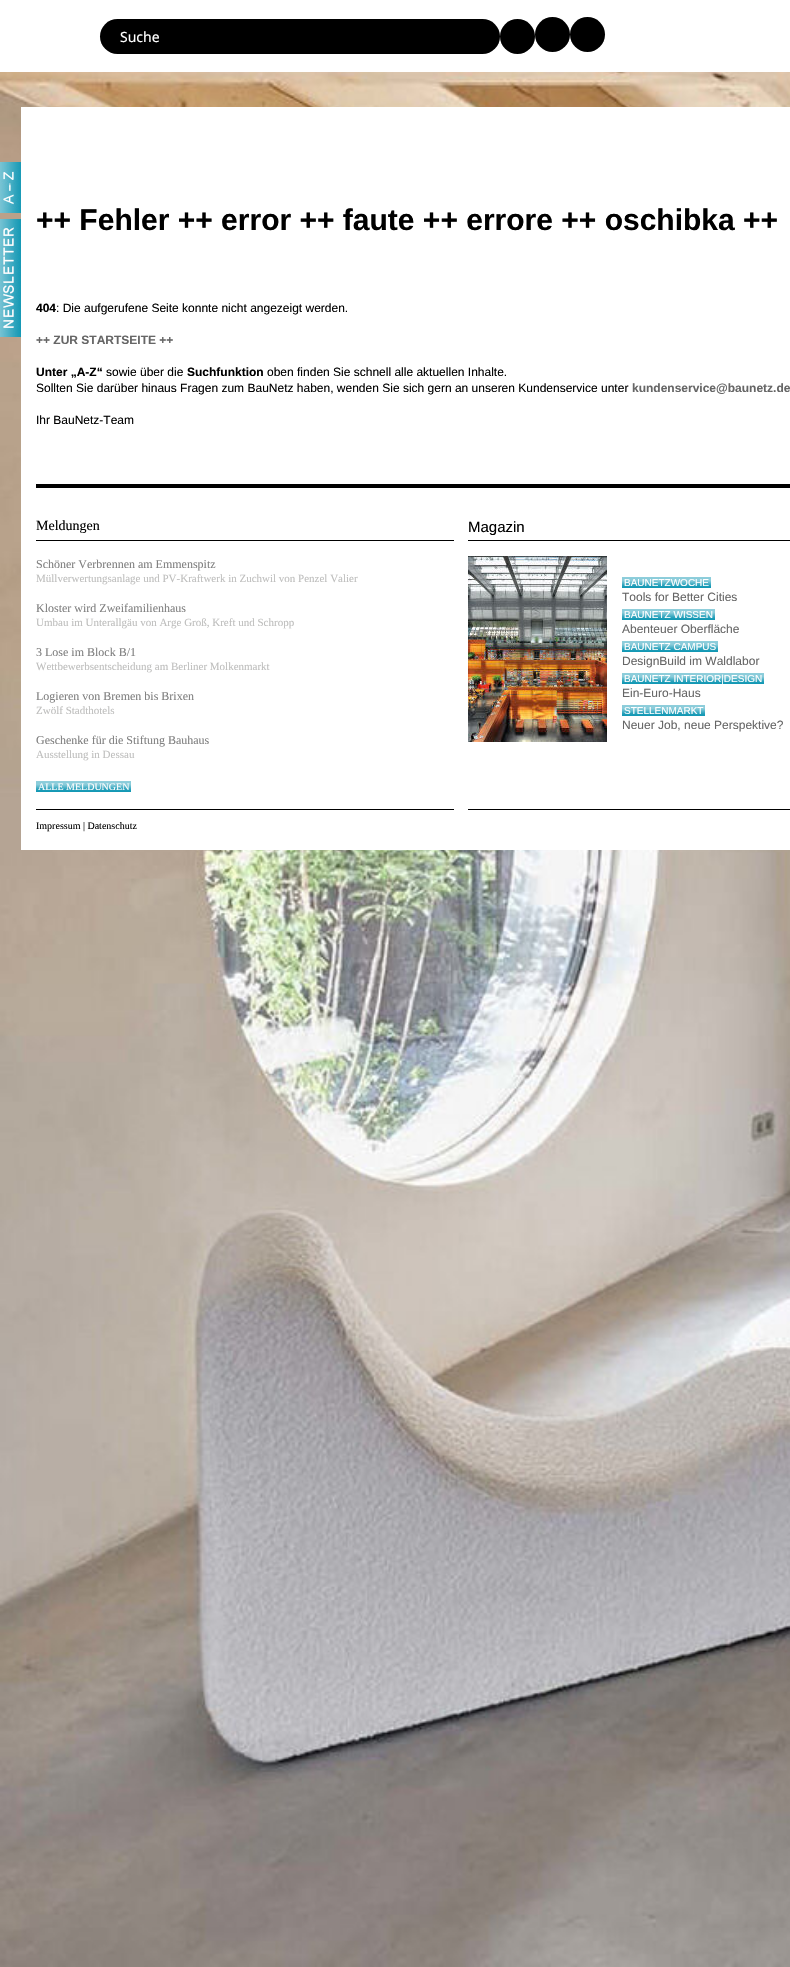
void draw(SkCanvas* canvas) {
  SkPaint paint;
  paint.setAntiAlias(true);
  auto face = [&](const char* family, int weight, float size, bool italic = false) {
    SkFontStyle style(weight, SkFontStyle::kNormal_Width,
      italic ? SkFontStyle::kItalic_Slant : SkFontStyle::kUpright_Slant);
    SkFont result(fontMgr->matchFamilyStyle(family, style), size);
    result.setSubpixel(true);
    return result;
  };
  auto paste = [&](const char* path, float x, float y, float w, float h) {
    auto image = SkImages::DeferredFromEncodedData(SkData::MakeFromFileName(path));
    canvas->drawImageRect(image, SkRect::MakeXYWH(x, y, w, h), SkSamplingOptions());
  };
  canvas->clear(0xffffffff);
  paste("img/1.png", 0, 72, 790, 1895);
  paint.setColor(0xff000000);
  canvas->drawRoundRect(SkRect::MakeXYWH(100, 19, 400, 35), 17.5f, 17.5f, paint);
  canvas->drawCircle(517.5f, 36.5f, 17.5f, paint);
  canvas->drawCircle(552.5f, 34.5f, 17.5f, paint);
  canvas->drawCircle(587.5f, 34.5f, 17.5f, paint);
  paint.setColor(0xffffffff);
  canvas->drawRect(SkRect::MakeXYWH(21, 107, 769, 743), paint);
  paste("img/2.png", 0, 162, 21, 51);
  paste("img/3.png", 0, 219, 21, 118);
  paint.setColor(0xff000000);
  canvas->drawRect(SkRect::MakeXYWH(36, 484, 754, 4), paint);
  canvas->drawRect(SkRect::MakeXYWH(36, 540, 418, 1), paint);
  paste("img/4.png", 36, 781, 95, 11);
  canvas->drawRect(SkRect::MakeXYWH(468, 540, 322, 1), paint);
  paste("img/5.png", 468, 556, 139, 186);
  paste("img/6.png", 622, 577, 89, 11);
  paste("img/7.png", 622, 609, 93, 11);
  paste("img/8.png", 622, 641, 96, 11);
  paste("img/9.png", 622, 673, 142, 11);
  paste("img/10.png", 622, 705, 83, 11);
  canvas->drawRect(SkRect::MakeXYWH(36, 809, 418, 1), paint);
  canvas->drawRect(SkRect::MakeXYWH(468, 809, 322, 1), paint);
  auto f0 = face("Noto Sans", 400, 14);
  paint.setColor(0xffffffff);
  canvas->drawString("Suche", 120, 42, f0, paint);
  auto f1 = face("Liberation Sans", 700, 30);
  paint.setColor(0xff000000);
  canvas->drawString("++ Fehler ++ error ++ faute ++ errore ++ oschibka ++", 36, 230, f1, paint);
  auto f2 = face("Liberation Sans", 700, 12);
  canvas->drawString("404", 36, 312, f2, paint);
  auto f3 = face("Liberation Sans", 400, 12);
  canvas->drawString(": Die aufgerufene Seite konnte nicht angezeigt werden.", 56, 312, f3, paint);
  paint.setColor(0xff666666);
  canvas->drawString("++ ZUR STARTSEITE ++", 36, 344, f2, paint);
  paint.setColor(0xff000000);
  canvas->drawString("Unter „A-Z“", 36, 376, f2, paint);
  canvas->drawString("sowie über die", 106, 376, f3, paint);
  canvas->drawString("Suchfunktion", 187, 376, f2, paint);
  canvas->drawString("oben finden Sie schnell alle aktuellen Inhalte.", 267, 376, f3, paint);
  canvas->drawString("Sollten Sie darüber hinaus Fragen zum BauNetz haben, wenden Sie sich gern an unseren Kundenservice unter", 36, 392, f3, paint);
  paint.setColor(0xff666666);
  canvas->drawString("kundenservice@baunetz.de", 632, 392, f2, paint);
  paint.setColor(0xff000000);
  canvas->drawString("Ihr BauNetz-Team", 36, 424, f3, paint);
  auto f4 = face("Liberation Serif", 400, 14);
  canvas->drawString("Meldungen", 36, 530, f4, paint);
  auto f5 = face("Liberation Sans", 400, 15);
  canvas->drawString("Magazin", 468, 532, f5, paint);
  auto f6 = face("Liberation Serif", 400, 12);
  paint.setColor(0xff7f7f7f);
  canvas->drawString("Schöner Verbrennen am Emmenspitz", 36, 568, f6, paint);
  auto f7 = face("Liberation Serif", 400, 11);
  paint.setColor(0xffbebebd);
  canvas->drawString("Müllverwertungsanlage und PV-Kraftwerk in Zuchwil von Penzel Valier", 36, 582, f7, paint);
  paint.setColor(0xff7f7f7f);
  canvas->drawString("Kloster wird Zweifamilienhaus", 36, 612, f6, paint);
  paint.setColor(0xffbebebd);
  canvas->drawString("Umbau im Unterallgäu von Arge Groß, Kreft und Schropp", 36, 626, f7, paint);
  paint.setColor(0xff7f7f7f);
  canvas->drawString("3 Lose im Block B/1", 36, 656, f6, paint);
  paint.setColor(0xffbebebd);
  canvas->drawString("Wettbewerbsentscheidung am Berliner Molkenmarkt", 36, 670, f7, paint);
  paint.setColor(0xff7f7f7f);
  canvas->drawString("Logieren von Bremen bis Brixen", 36, 700, f6, paint);
  paint.setColor(0xffbebebd);
  canvas->drawString("Zwölf Stadthotels", 36, 714, f7, paint);
  paint.setColor(0xff7f7f7f);
  canvas->drawString("Geschenke für die Stiftung Bauhaus", 36, 744, f6, paint);
  paint.setColor(0xffbebebd);
  canvas->drawString("Ausstellung in Dessau", 36, 758, f7, paint);
  auto f8 = face("Liberation Serif", 400, 10);
  paint.setColor(0xffffffff);
  canvas->drawString("ALLE MELDUNGEN", 38, 790, f8, paint);
  auto f9 = face("Liberation Sans", 400, 10);
  canvas->drawString("BAUNETZWOCHE", 624, 586, f9, paint);
  paint.setColor(0xff666666);
  canvas->drawString("Tools for Better Cities", 622, 601, f3, paint);
  paint.setColor(0xffffffff);
  canvas->drawString("BAUNETZ WISSEN", 624, 618, f9, paint);
  paint.setColor(0xff666666);
  canvas->drawString("Abenteuer Oberfläche", 622, 633, f3, paint);
  paint.setColor(0xffffffff);
  canvas->drawString("BAUNETZ CAMPUS", 624, 650, f9, paint);
  paint.setColor(0xff666666);
  canvas->drawString("DesignBuild im Waldlabor", 622, 665, f3, paint);
  paint.setColor(0xffffffff);
  canvas->drawString("BAUNETZ INTERIOR|DESIGN", 624, 682, f9, paint);
  paint.setColor(0xff666666);
  canvas->drawString("Ein-Euro-Haus", 622, 697, f3, paint);
  paint.setColor(0xffffffff);
  canvas->drawString("STELLENMARKT", 624, 714, f9, paint);
  paint.setColor(0xff666666);
  canvas->drawString("Neuer Job, neue Perspektive?", 622, 729, f3, paint);
  paint.setColor(0xff000000);
  canvas->drawString("Impressum | Datenschutz", 36, 829, f8, paint);
}
